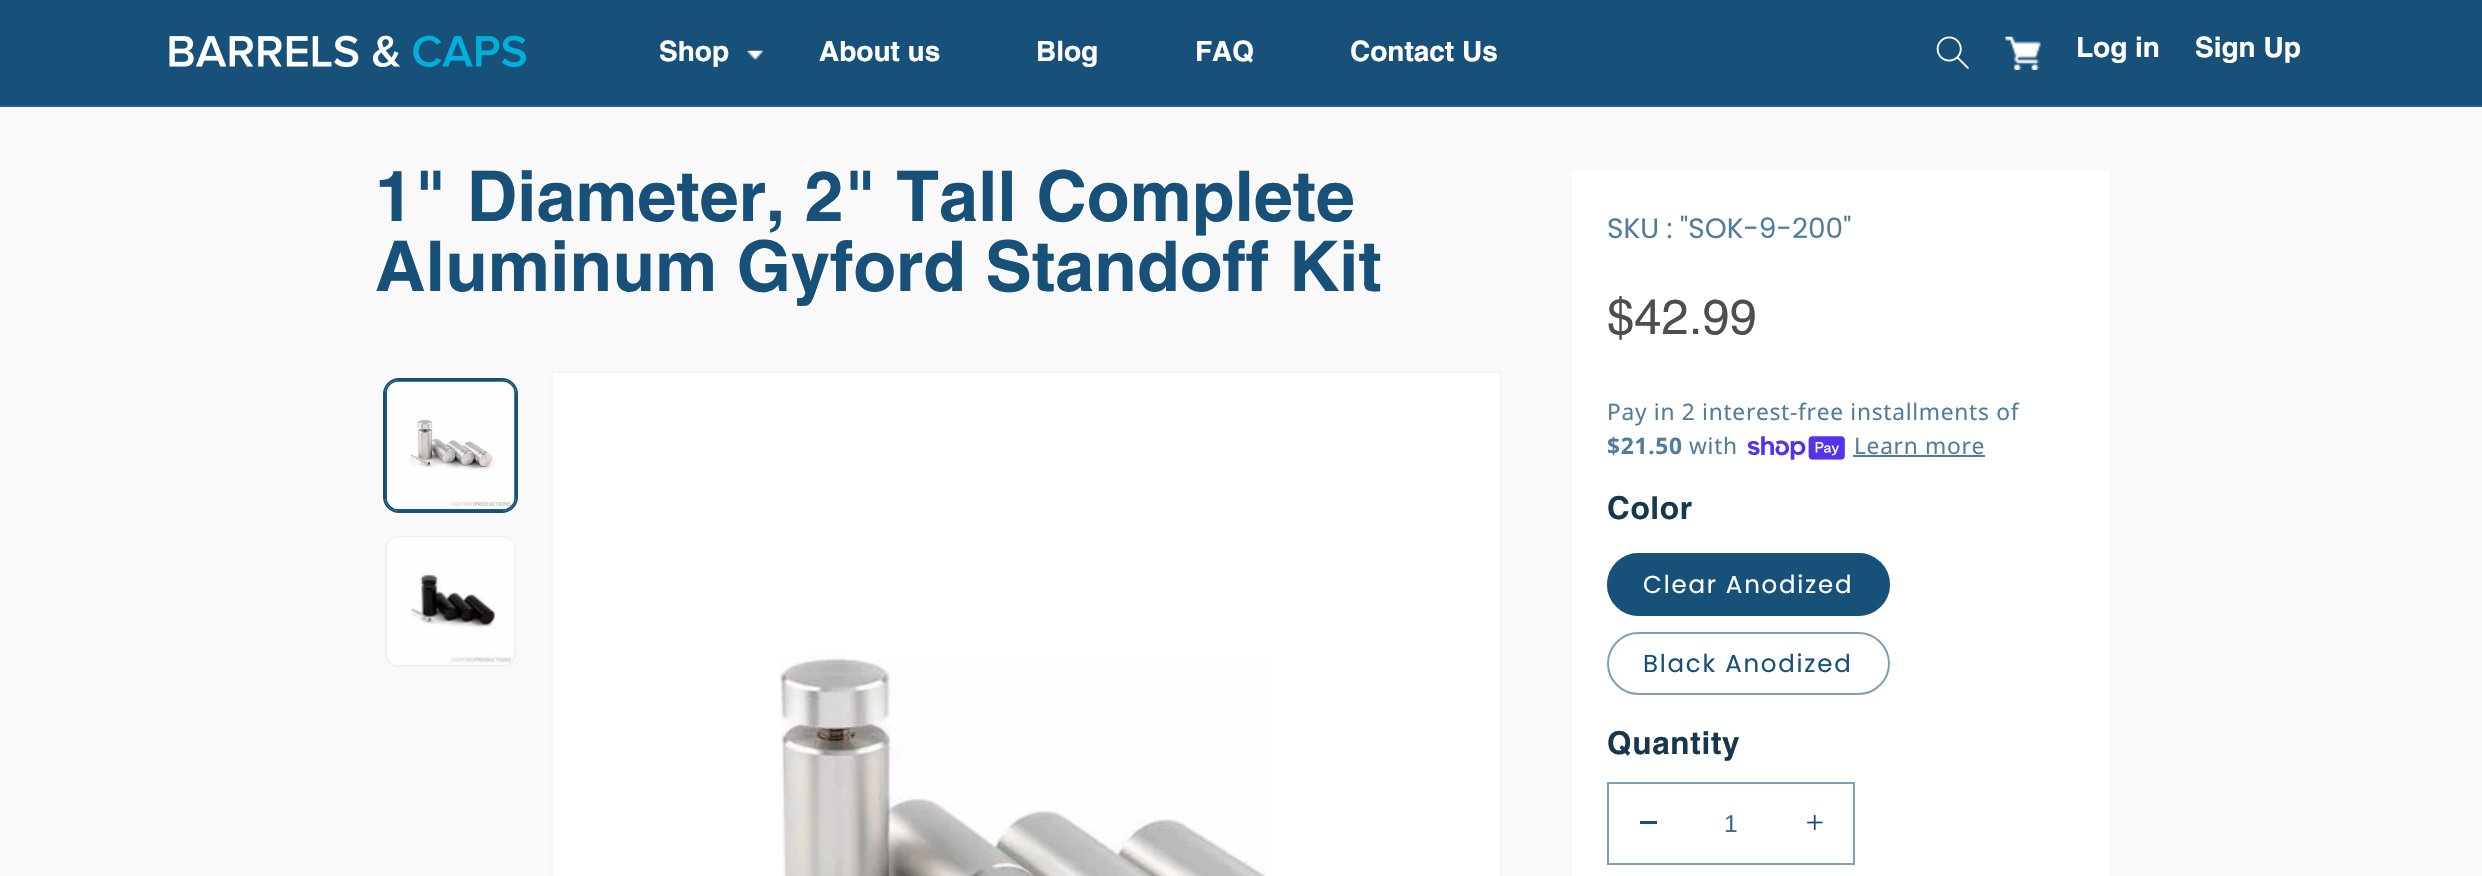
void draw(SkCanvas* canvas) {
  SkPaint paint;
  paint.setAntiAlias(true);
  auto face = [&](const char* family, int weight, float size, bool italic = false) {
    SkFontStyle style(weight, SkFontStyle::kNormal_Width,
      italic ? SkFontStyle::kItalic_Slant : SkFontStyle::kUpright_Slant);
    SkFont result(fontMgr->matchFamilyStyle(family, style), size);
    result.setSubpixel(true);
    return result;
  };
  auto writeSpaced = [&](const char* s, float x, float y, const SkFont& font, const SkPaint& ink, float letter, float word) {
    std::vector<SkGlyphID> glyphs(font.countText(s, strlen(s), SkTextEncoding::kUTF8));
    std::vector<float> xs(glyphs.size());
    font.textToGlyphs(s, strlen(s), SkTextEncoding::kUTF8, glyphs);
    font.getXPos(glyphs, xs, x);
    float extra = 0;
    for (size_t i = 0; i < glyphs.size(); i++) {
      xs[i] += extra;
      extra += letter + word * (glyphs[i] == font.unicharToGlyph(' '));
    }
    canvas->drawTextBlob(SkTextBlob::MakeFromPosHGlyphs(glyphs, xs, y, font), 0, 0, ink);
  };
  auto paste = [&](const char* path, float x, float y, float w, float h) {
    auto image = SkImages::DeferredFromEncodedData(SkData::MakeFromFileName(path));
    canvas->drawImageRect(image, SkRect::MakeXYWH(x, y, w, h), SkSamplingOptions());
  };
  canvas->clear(0xfff9f9f9);
  paint.setColor(0xff17517a);
  canvas->drawRect(SkRect::MakeXYWH(0, 0, 2482, 105), paint);
  paint.setColor(0xff2a5f85);
  canvas->drawRect(SkRect::MakeXYWH(0, 105, 2482, 2), paint);
  paste("img/1.png", 169, 35, 232, 33);
  paste("img/2.png", 413, 35, 113, 32);
  paste("img/3.png", 747, 50, 16, 10);
  paste("img/4.png", 1936, 36, 33, 33);
  paste("img/5.png", 2005, 36, 36, 34);
  paint.setStroke(true);
  paint.setStrokeWidth(2);
  paint.setColor(0xff17517a);
  canvas->drawRoundRect(SkRect::MakeXYWH(384, 379, 133, 133), 15, 15, paint);
  canvas->drawRoundRect(SkRect::MakeXYWH(386, 381, 129, 129), 13, 13, paint);
  paste("img/6.png", 386, 381, 129, 129);
  paint.setColor(0xffeef1f3);
  canvas->drawRoundRect(SkRect::MakeXYWH(386, 537, 129, 129), 13, 13, paint);
  paste("img/7.png", 387, 537, 128, 128);
  paint.setStroke(false);
  paint.setColor(0xffffffff);
  canvas->drawRect(SkRect::MakeXYWH(552, 372, 949, 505), paint);
  paint.setStroke(true);
  paint.setColor(0xfff3f6f8);
  canvas->drawRect(SkRect::MakeXYWH(552, 372, 949, 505), paint);
  paste("img/8.png", 779, 655, 486, 221);
  paint.setStroke(false);
  paint.setColor(0xffffffff);
  canvas->drawRect(SkRect::MakeXYWH(1572, 170, 537, 706), paint);
  paste("img/9.png", 1747, 436, 98, 24);
  paint.setColor(0xff517d9b);
  canvas->drawRect(SkRect::MakeXYWH(1853, 455, 132, 2), paint);
  paint.setColor(0xff17517a);
  canvas->drawRoundRect(SkRect::MakeXYWH(1607, 553, 283, 63), 31.5f, 31.5f, paint);
  paint.setStroke(true);
  paint.setColor(0x8c17517a);
  canvas->drawRoundRect(SkRect::MakeXYWH(1608, 554, 281, 61), 30.5f, 30.5f, paint);
  paint.setColor(0xff7f9fb6);
  canvas->drawRoundRect(SkRect::MakeXYWH(1608, 633, 281, 61), 30.5f, 30.5f, paint);
  paint.setStroke(false);
  paint.setColor(0xff17517a);
  canvas->drawRect(SkRect::MakeXYWH(1640, 821, 17, 3), paint);
  paste("img/10.png", 1806, 814, 17, 17);
  paint.setStroke(true);
  paint.setColor(0xff7f9fb6);
  canvas->drawRect(SkRect::MakeXYWH(1608, 783, 246, 81), paint);
  auto f0 = face("Helvetica", 700, 28);
  paint.setStroke(false);
  paint.setColor(0xffffffff);
  {
    const struct { const char* s; float x, y; } items[] = {
      {"Shop", 659, 61},
      {"About us", 819, 61},
      {"Blog", 1036, 61},
      {"FAQ", 1195, 61},
      {"Contact Us", 1350, 61},
      {"Log in", 2076, 57},
      {"Sign Up", 2195, 57},
    };
    for (auto [s, x, y] : items) {
      canvas->drawString(s, x, y, f0, paint);
    }
  }
  auto f1 = face("Helvetica", 700, 70);
  paint.setColor(0xff17517a);
  canvas->drawString("1\" Diameter, 2\" Tall Complete", 375, 221, f1, paint);
  canvas->drawString("Aluminum Gyford Standoff Kit", 375, 291, f1, paint);
  auto f2 = face("Poppins", 400, 28);
  paint.setColor(0xff517d9b);
  canvas->drawString("SKU : \"SOK-9-200\"", 1607, 238, f2, paint);
  auto f3 = face("Helvetica", 400, 49);
  paint.setColor(0xff4e4e4e);
  canvas->drawString("$42.99", 1607, 334, f3, paint);
  auto f4 = face("Noto Sans", 400, 22.75f);
  paint.setColor(0xff517d9b);
  writeSpaced("Pay in 2 interest-free installments of", 1607, 420, f4, paint, 0.7f, 0);
  auto f5 = face("Noto Sans", 700, 22.75f);
  writeSpaced("$21.50", 1607, 454, f5, paint, 0.7f, 0);
  writeSpaced("with", 1689, 454, f4, paint, 0.7f, 0);
  writeSpaced("Learn more", 1854, 454, f4, paint, 0.7f, 0);
  auto f6 = face("Helvetica", 700, 31.5f);
  paint.setColor(0xff17374e);
  writeSpaced("Color", 1607, 519, f6, paint, 0.7f, 0);
  auto f7 = face("Poppins", 400, 24.5f);
  paint.setColor(0xffffffff);
  writeSpaced("Clear Anodized", 1643, 593, f7, paint, 1.75f, 0);
  paint.setColor(0xff17517a);
  writeSpaced("Black Anodized", 1643, 672, f7, paint, 1.75f, 0);
  paint.setColor(0xff17374e);
  writeSpaced("Quantity", 1607, 754, f6, paint, 0.7f, 0);
  auto f8 = face("Liberation Sans", 400, 24.5f);
  paint.setColor(0xff3a6b8e);
  canvas->drawString("1", 1724, 832, f8, paint);
}
